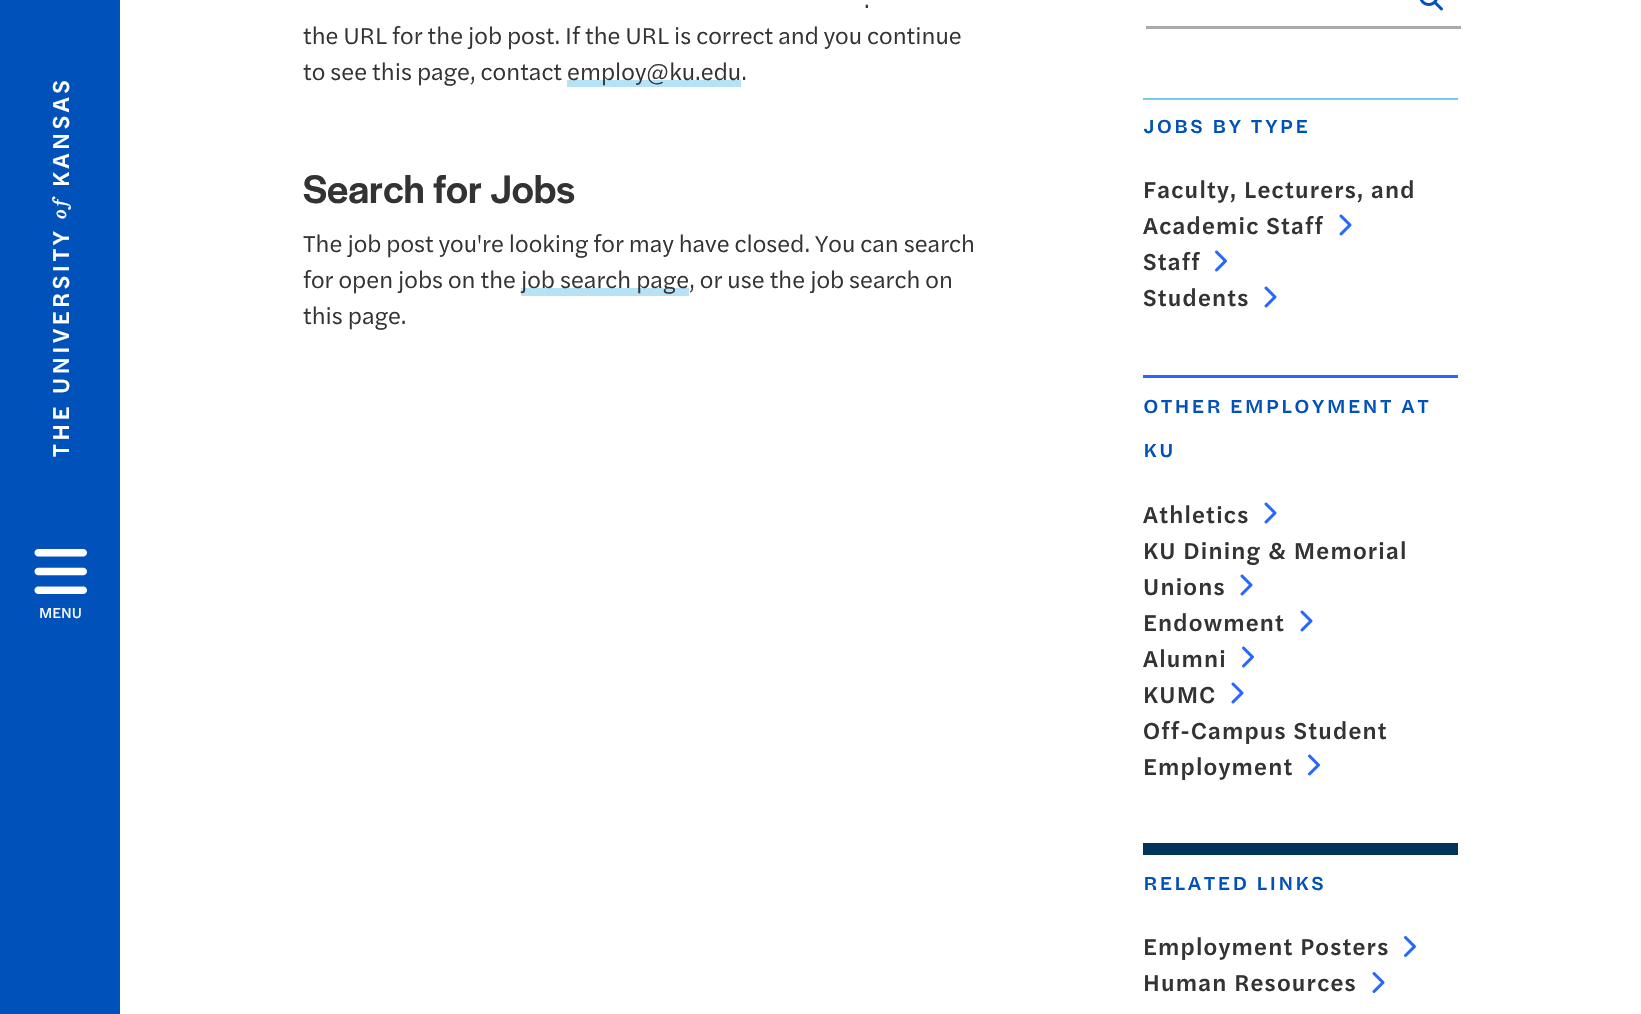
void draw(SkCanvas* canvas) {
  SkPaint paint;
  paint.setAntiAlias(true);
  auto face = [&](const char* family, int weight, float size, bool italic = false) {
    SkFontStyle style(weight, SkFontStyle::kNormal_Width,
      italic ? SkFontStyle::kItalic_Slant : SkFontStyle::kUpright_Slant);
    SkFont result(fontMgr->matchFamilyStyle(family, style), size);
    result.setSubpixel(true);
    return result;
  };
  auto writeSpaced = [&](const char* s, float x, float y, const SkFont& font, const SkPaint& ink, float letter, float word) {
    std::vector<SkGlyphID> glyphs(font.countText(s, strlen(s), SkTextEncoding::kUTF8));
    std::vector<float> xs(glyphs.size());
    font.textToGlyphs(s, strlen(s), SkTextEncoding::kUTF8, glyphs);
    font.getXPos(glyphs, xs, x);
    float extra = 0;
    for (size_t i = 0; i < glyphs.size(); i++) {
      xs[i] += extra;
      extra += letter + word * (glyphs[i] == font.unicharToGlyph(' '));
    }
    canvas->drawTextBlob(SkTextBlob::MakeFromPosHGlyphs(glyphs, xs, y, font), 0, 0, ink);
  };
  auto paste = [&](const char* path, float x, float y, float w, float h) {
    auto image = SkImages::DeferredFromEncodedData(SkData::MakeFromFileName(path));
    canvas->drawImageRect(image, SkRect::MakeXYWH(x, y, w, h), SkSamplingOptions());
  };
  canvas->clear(0xffffffff);
  paint.setColor(0xff0051ba);
  canvas->drawRect(SkRect::MakeXYWH(0, 0, 120, 1014), paint);
  paste("img/1.png", 34, 549, 53, 45);
  paint.setColor(0xffb6e2f5);
  canvas->drawRect(SkRect::MakeXYWH(567, 80, 174, 7), paint);
  canvas->drawRect(SkRect::MakeXYWH(521, 288, 168, 8), paint);
  paste("img/2.png", 1419, 0, 24, 11);
  paint.setColor(0xffaaaaaa);
  canvas->drawRect(SkRect::MakeXYWH(1146, 26, 315, 3), paint);
  paint.setColor(0xff73cbf2);
  canvas->drawRect(SkRect::MakeXYWH(1143, 98, 315, 2), paint);
  paste("img/3.png", 1339, 214, 13, 22);
  paste("img/4.png", 1215, 250, 12, 22);
  paste("img/3.png", 1264, 286, 13, 22);
  paint.setColor(0xff2767ff);
  canvas->drawRect(SkRect::MakeXYWH(1143, 375, 315, 3), paint);
  paste("img/3.png", 1264, 502, 13, 22);
  paste("img/3.png", 1240, 574, 13, 22);
  paste("img/3.png", 1300, 610, 13, 22);
  paste("img/4.png", 1242, 646, 12, 22);
  paste("img/3.png", 1231, 682, 13, 22);
  paste("img/4.png", 1308, 754, 12, 22);
  paint.setColor(0xff003459);
  canvas->drawRect(SkRect::MakeXYWH(1143, 843, 315, 12), paint);
  paste("img/5.png", 1404, 936, 12, 21);
  paste("img/6.png", 1372, 972, 13, 21);
  auto f0 = face("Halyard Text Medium", 500, 24);
  paint.setColor(0xffffffff);
  canvas->save();
  canvas->rotate(-90, 69, 187);
  writeSpaced("KANSAS", 69, 187, f0, paint, 3.5f, 0);
  canvas->restore();
  auto f1 = face("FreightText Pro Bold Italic", 700, 20, true);
  canvas->save();
  canvas->rotate(-90, 66, 219);
  writeSpaced("of", 66, 219, f1, paint, 3.5f, 0);
  canvas->restore();
  canvas->save();
  canvas->rotate(-90, 69, 457);
  writeSpaced("THE UNIVERSITY", 69, 457, f0, paint, 3.5f, 0);
  canvas->restore();
  auto f2 = face("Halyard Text", 400, 15);
  canvas->drawString("MENU", 39, 618, f2, paint);
  auto f3 = face("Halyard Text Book", 400, 24);
  paint.setColor(0xff333333);
  {
    const struct { const char* s; float x, y; } items[] = {
      {".", 864, 8},
      {"the URL for the job post. If the URL is correct and you continue", 303, 44},
      {"to see this page, contact", 303, 80},
      {"employ@ku.edu.", 567, 80},
    };
    for (auto [s, x, y] : items) {
      canvas->drawString(s, x, y, f3, paint);
    }
  }
  auto f4 = face("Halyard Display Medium", 500, 41.5f);
  canvas->drawString("Search for Jobs", 303, 203, f4, paint);
  {
    const struct { const char* s; float x, y; } items[] = {
      {"The job post you're looking for may have closed. You can search", 303, 252},
      {"for open jobs on the", 303, 288},
      {"job search page, or use the job search on", 521, 288},
      {"this page.", 303, 324},
    };
    for (auto [s, x, y] : items) {
      canvas->drawString(s, x, y, f3, paint);
    }
  }
  auto f5 = face("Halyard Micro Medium", 500, 19.5f);
  paint.setColor(0xff0051ba);
  writeSpaced("JOBS BY TYPE", 1143, 133, f5, paint, 1.5f, 0);
  paint.setColor(0xff333333);
  {
    const struct { const char* s; float x, y; } items[] = {
      {"Faculty, Lecturers, and", 1143, 198},
      {"Academic Staff", 1143, 234},
      {"Staff", 1143, 270},
      {"Students", 1143, 306},
    };
    for (auto [s, x, y] : items) {
      writeSpaced(s, x, y, f0, paint, 1.2f, 0);
    }
  }
  paint.setColor(0xff0051ba);
  writeSpaced("OTHER EMPLOYMENT AT", 1143, 413, f5, paint, 1.5f, 0);
  writeSpaced("KU", 1143, 457, f5, paint, 1.5f, 0);
  paint.setColor(0xff333333);
  {
    const struct { const char* s; float x, y; } items[] = {
      {"Athletics", 1143, 523},
      {"KU Dining & Memorial", 1143, 559},
      {"Unions", 1143, 595},
      {"Endowment", 1143, 631},
      {"Alumni", 1143, 667},
      {"KUMC", 1143, 703},
      {"Off-Campus Student", 1143, 739},
      {"Employment", 1143, 775},
    };
    for (auto [s, x, y] : items) {
      writeSpaced(s, x, y, f0, paint, 1.2f, 0);
    }
  }
  paint.setColor(0xff0051ba);
  writeSpaced("RELATED LINKS", 1143, 890, f5, paint, 1.5f, 0);
  paint.setColor(0xff333333);
  writeSpaced("Employment Posters", 1143, 955, f0, paint, 1.2f, 0);
  writeSpaced("Human Resources", 1143, 991, f0, paint, 1.2f, 0);
}
